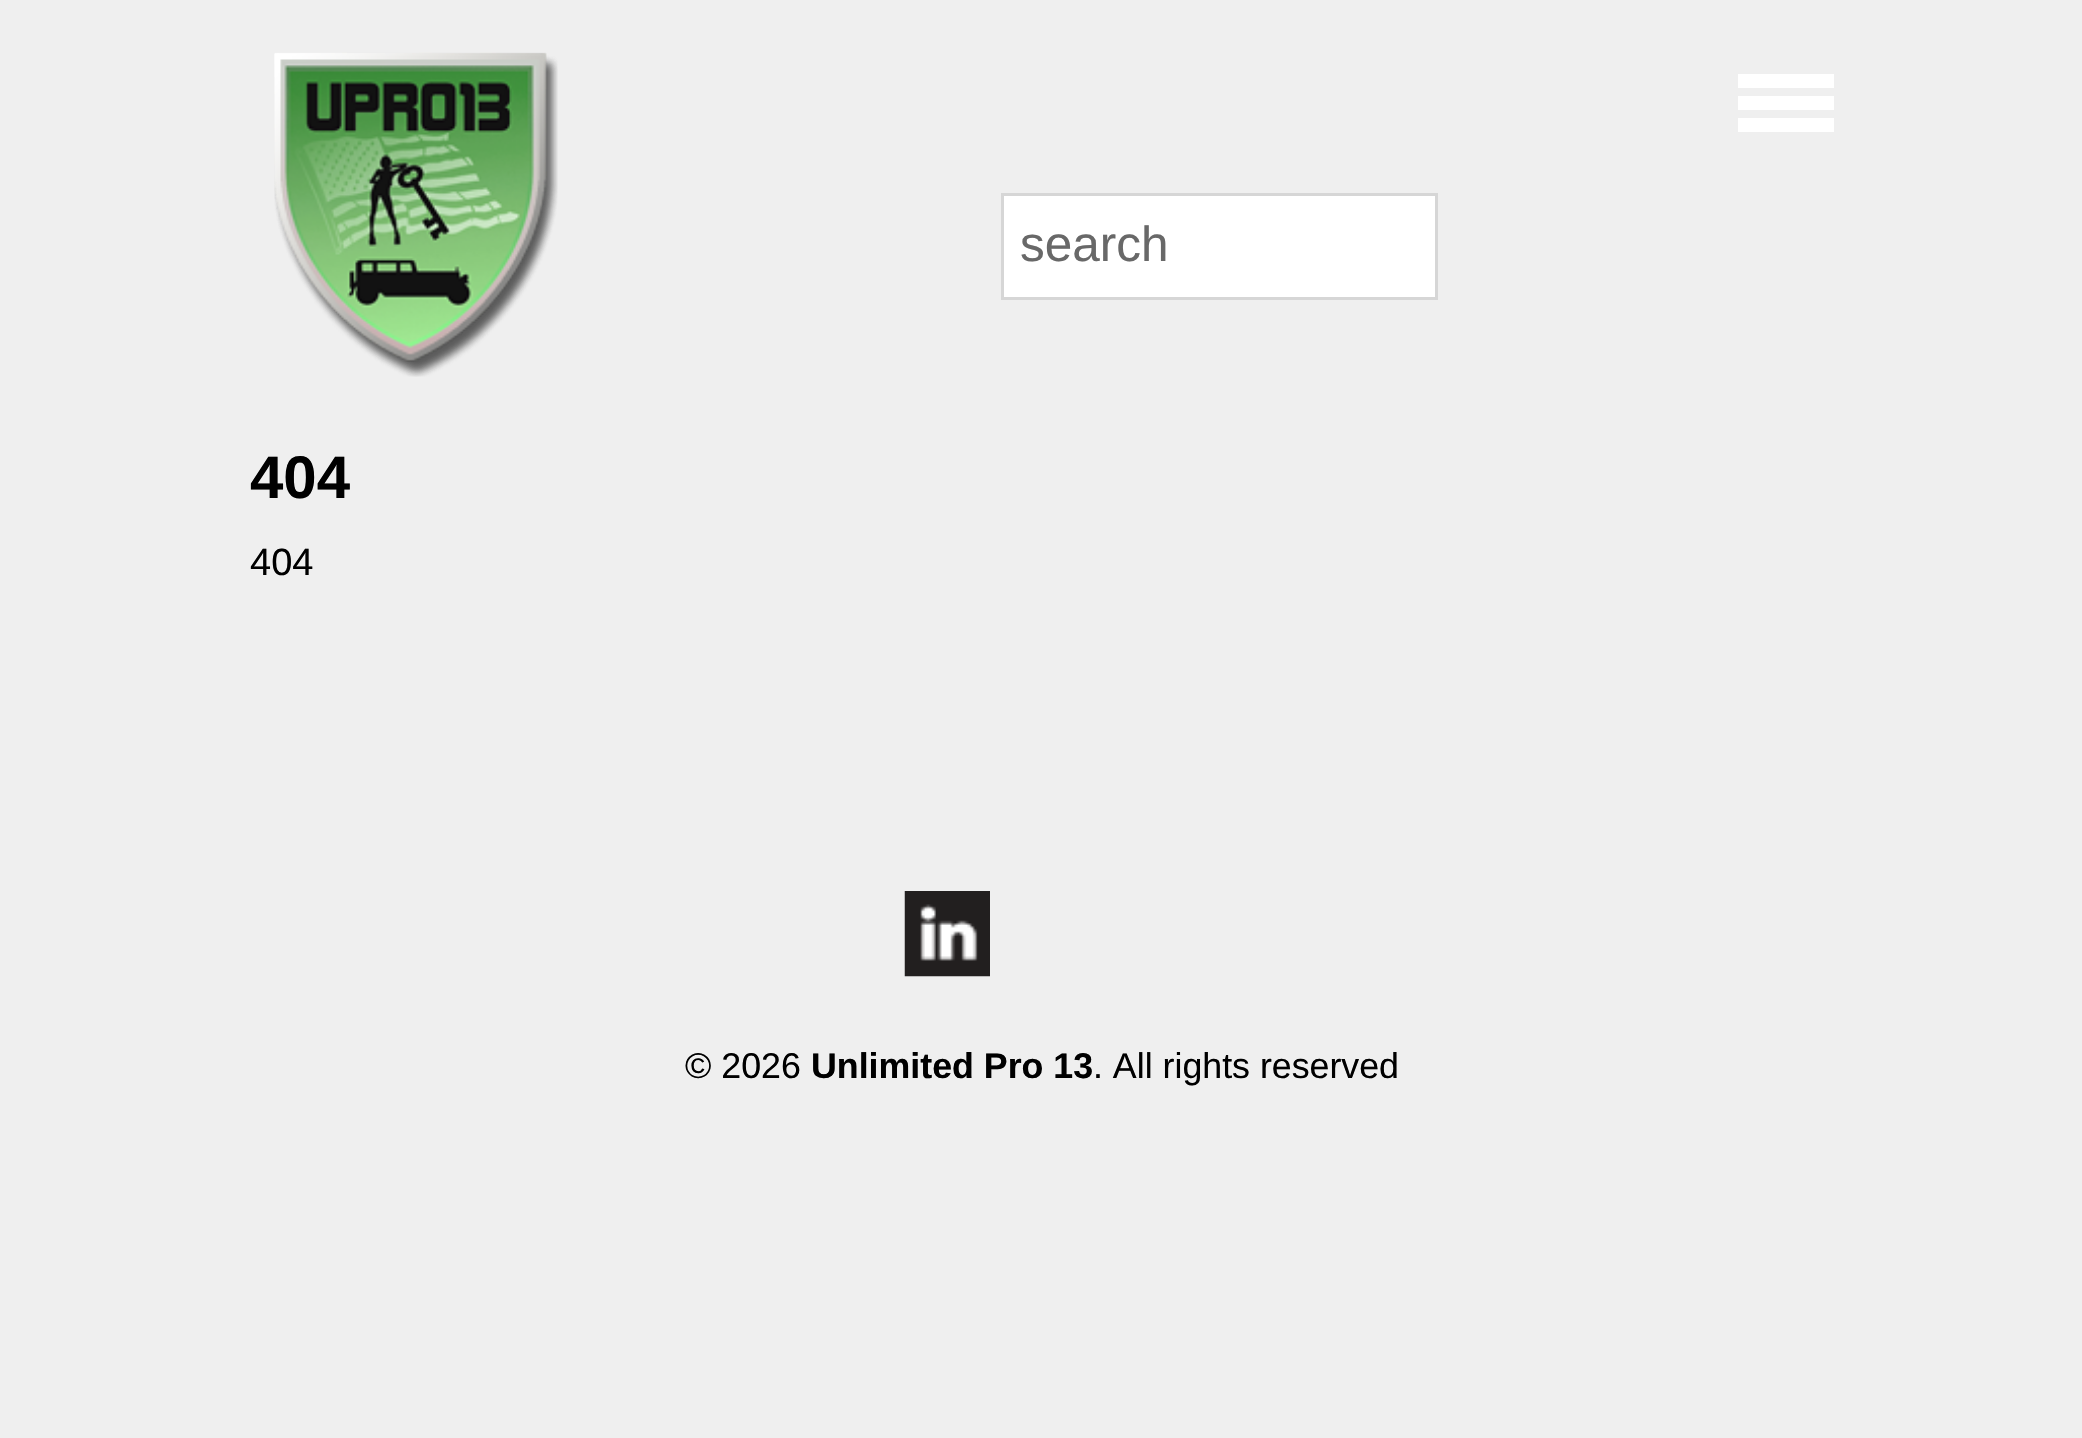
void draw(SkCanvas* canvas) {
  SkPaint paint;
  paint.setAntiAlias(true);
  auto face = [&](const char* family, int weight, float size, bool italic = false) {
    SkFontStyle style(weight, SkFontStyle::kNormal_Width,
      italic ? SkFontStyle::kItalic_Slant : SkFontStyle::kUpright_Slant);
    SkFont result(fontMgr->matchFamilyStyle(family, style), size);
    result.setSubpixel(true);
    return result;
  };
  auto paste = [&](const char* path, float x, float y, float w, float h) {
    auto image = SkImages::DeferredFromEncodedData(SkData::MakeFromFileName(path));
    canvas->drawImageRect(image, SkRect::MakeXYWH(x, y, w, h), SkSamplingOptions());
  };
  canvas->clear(0xffefefef);
  paste("img/1.png", 274, 52, 284, 325);
  paste("img/2.png", 275, 53, 282, 323);
  {
    const struct { float x, y, w, h; SkColor color; } items[] = {
      {1738, 96, 96, 14, 0xffffffff},
      {1738, 74, 96, 14, 0xffffffff},
      {1738, 118, 96, 14, 0xffffffff},
    };
    for (auto [x, y, w, h, color] : items) {
      paint.setColor(color);
      canvas->drawRect(SkRect::MakeXYWH(x, y, w, h), paint);
    }
  }
  canvas->drawRect(SkRect::MakeXYWH(1002.5f, 194.5f, 434, 104), paint);
  paint.setStroke(true);
  paint.setStrokeWidth(3);
  paint.setColor(0xffd6d6d6);
  canvas->drawRect(SkRect::MakeXYWH(1002.5f, 194.5f, 434, 104), paint);
  paste("img/3.png", 904, 891, 86, 86);
  auto f0 = face("Liberation Sans", 400, 49.5f);
  paint.setStroke(false);
  paint.setColor(0xff686868);
  canvas->drawString("search", 1020, 261, f0, paint);
  auto f1 = face("Liberation Sans", 700, 60);
  paint.setColor(0xff000000);
  canvas->drawString("404", 250, 498, f1, paint);
  auto f2 = face("Liberation Sans", 400, 38);
  canvas->drawString("404", 250, 575, f2, paint);
  auto f3 = face("Liberation Sans", 400, 35.75f);
  canvas->drawString("© 2026", 685, 1078, f3, paint);
  auto f4 = face("Liberation Sans", 700, 35.75f);
  canvas->drawString("Unlimited Pro 13", 811, 1078, f4, paint);
  canvas->drawString(". All rights reserved", 1093, 1078, f3, paint);
}
